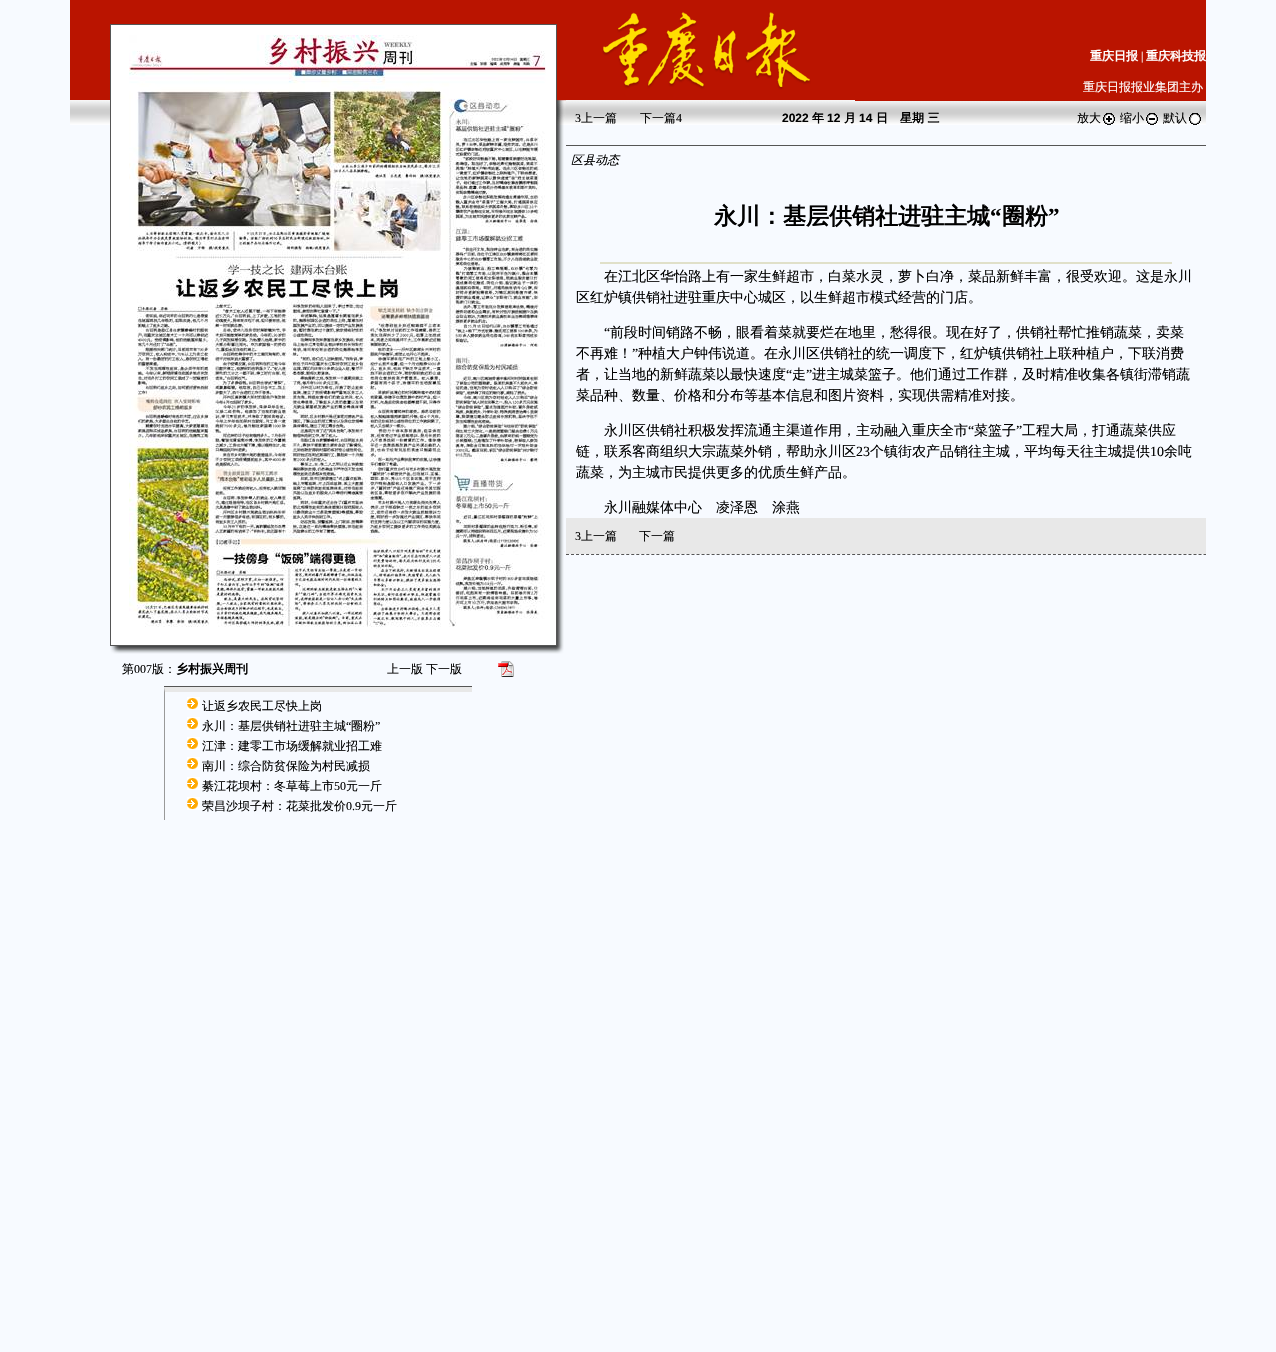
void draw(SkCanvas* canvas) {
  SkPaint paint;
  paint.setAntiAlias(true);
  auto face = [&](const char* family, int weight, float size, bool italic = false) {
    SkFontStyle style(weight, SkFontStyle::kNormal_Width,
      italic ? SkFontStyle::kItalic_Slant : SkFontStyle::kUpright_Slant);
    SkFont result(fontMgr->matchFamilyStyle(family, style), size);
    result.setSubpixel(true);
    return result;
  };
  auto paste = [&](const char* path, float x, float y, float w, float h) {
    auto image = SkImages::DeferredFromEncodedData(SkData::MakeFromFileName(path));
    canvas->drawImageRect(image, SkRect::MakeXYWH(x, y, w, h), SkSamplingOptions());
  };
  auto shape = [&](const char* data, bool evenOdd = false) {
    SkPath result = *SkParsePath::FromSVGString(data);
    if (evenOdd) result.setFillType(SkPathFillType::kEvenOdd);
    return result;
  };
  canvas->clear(0xfff7faff);
  paste("img/1.png", 70, 100, 1136, 25);
  paste("img/2.png", 566, 0, 289, 100);
  {
    const struct { float x, y, w, h; SkColor color; } items[] = {
      {855, 0, 351, 72, 0xffba1400},
      {855, 72, 351, 29, 0xffba1400},
      {566, 145, 640, 1, 0xff555555},
    };
    for (auto [x, y, w, h, color] : items) {
      paint.setColor(color);
      canvas->drawRect(SkRect::MakeXYWH(x, y, w, h), paint);
    }
  }
  paste("img/3.png", 1103, 113, 12, 12);
  paste("img/4.png", 1146, 113, 12, 12);
  paste("img/5.png", 1189, 113, 12, 12);
  paint.setColor(0xffe0e0c9);
  canvas->drawRect(SkRect::MakeXYWH(600, 262, 572, 2), paint);
  paint.setStroke(true);
  paint.setStrokeWidth(1);
  paint.setColor(0xff555555);
  paint.setPathEffect(SkDashPathEffect::Make({{3, 2.02f}}, 0));
  canvas->drawPath(shape("M566 554.5H1206"), paint);
  paint.setPathEffect(nullptr);
  paint.setStroke(false);
  {
    const struct { float x, y, w, h; SkColor color; } items[] = {
      {566, 518, 640, 36, 0xffe8e8e8},
      {70, 0, 40, 100, 0xffba1400},
      {110, 0, 447, 24, 0xffba1400},
    };
    for (auto [x, y, w, h, color] : items) {
      paint.setColor(color);
      canvas->drawRect(SkRect::MakeXYWH(x, y, w, h), paint);
    }
  }
  paste("img/6.png", 557, 125, 9, 521);
  paste("img/7.png", 557, 0, 9, 125);
  paint.setColor(0xffffffff);
  canvas->drawRect(SkRect::MakeXYWH(110.5f, 24.5f, 446, 621), paint);
  paint.setStroke(true);
  paint.setColor(0xff555555);
  canvas->drawRect(SkRect::MakeXYWH(110.5f, 24.5f, 446, 621), paint);
  paste("img/8.png", 129, 35, 417, 592);
  paste("img/9.png", 110, 646, 447, 8);
  paste("img/10.png", 557, 646, 7, 8);
  paste("img/11.png", 498, 661, 16, 16);
  paint.setStroke(false);
  canvas->drawRect(SkRect::MakeXYWH(164, 686, 308, 1), paint);
  paint.setColor(0xffe8e8e8);
  canvas->drawPath(shape("M164 687H472V692H165Z"), paint);
  paint.setColor(0xff999999);
  canvas->drawPath(shape("M164 820V687L165 692V820Z"), paint);
  paste("img/12.png", 187, 697, 13, 13);
  paste("img/12.png", 187, 717, 13, 13);
  paste("img/12.png", 187, 737, 13, 13);
  paste("img/12.png", 187, 757, 13, 13);
  paste("img/12.png", 187, 777, 13, 13);
  paste("img/12.png", 187, 797, 13, 13);
  auto f0 = face("WenQuanYi Zen Hei", 700, 12);
  paint.setColor(0xffffffff);
  canvas->drawString("重庆日报", 1090, 60, f0, paint);
  auto f1 = face("Liberation Serif", 400, 12);
  canvas->drawString("|", 1141, 60, f1, paint);
  canvas->drawString("重庆科技报", 1146, 60, f0, paint);
  auto f2 = face("WenQuanYi Zen Hei", 500, 12);
  canvas->drawString("重庆日报报业集团主办", 1083, 91, f2, paint);
  paint.setColor(0xff000000);
  canvas->drawString("3", 575, 122, f1, paint);
  canvas->drawString("上一篇", 581, 122, f2, paint);
  canvas->drawString("下一篇", 640, 122, f2, paint);
  canvas->drawString("4", 676, 122, f1, paint);
  auto f3 = face("Liberation Sans", 700, 12);
  canvas->drawString("2022", 782, 122, f3, paint);
  canvas->drawString("年", 812, 122, f0, paint);
  canvas->drawString("12", 827, 122, f3, paint);
  canvas->drawString("月", 844, 122, f0, paint);
  canvas->drawString("14", 859, 122, f3, paint);
  canvas->drawString("日　星期 三", 876, 122, f0, paint);
  {
    const struct { const char* s; float x, y; } items[] = {
      {"放大", 1077, 122},
      {"缩小", 1120, 122},
      {"默认", 1163, 122},
    };
    for (auto [s, x, y] : items) {
      canvas->drawString(s, x, y, f2, paint);
    }
  }
  auto f4 = face("WenQuanYi Zen Hei", 500, 12, true);
  canvas->drawString("区县动态", 571, 164, f4, paint);
  auto f5 = face("WenQuanYi Zen Hei", 700, 23);
  canvas->drawString("永川：基层供销社进驻主城", 714, 224, f5, paint);
  auto f6 = face("Liberation Serif", 700, 23);
  canvas->drawString("“", 990, 224, f6, paint);
  canvas->drawString("圈粉", 1002, 224, f5, paint);
  canvas->drawString("”", 1048, 224, f6, paint);
  auto f7 = face("WenQuanYi Zen Hei", 500, 14);
  canvas->drawString("在江北区华怡路上有一家生鲜超市，白菜水灵，萝卜白净，菜品新鲜丰富，很受欢迎。这是永川", 604, 281, f7, paint);
  canvas->drawString("区红炉镇供销社进驻重庆中心城区，以生鲜超市模式经营的门店。", 576, 302, f7, paint);
  auto f8 = face("Liberation Serif", 400, 14);
  canvas->drawString("“", 604, 337, f8, paint);
  canvas->drawString("前段时间销路不畅，眼看着菜就要烂在地里，愁得很。现在好了，供销社帮忙推销蔬菜，卖菜", 610, 337, f7, paint);
  canvas->drawString("不再难！", 576, 358, f7, paint);
  canvas->drawString("”", 632, 358, f8, paint);
  canvas->drawString("种植大户钟伟说道。在永川区供销社的统一调度下，红炉镇供销社上联种植户，下联消费", 638, 358, f7, paint);
  canvas->drawString("者，让当地的新鲜蔬菜以最快速度", 576, 379, f7, paint);
  canvas->drawString("“", 786, 379, f8, paint);
  canvas->drawString("走", 792, 379, f7, paint);
  canvas->drawString("”", 806, 379, f8, paint);
  {
    const struct { const char* s; float x, y; } items[] = {
      {"进主城菜篮子。他们通过工作群，及时精准收集各镇街滞销蔬", 812, 379},
      {"菜品种、数量、价格和分布等基本信息和图片资料，实现供需精准对接。", 576, 400},
      {"永川区供销社积极发挥流通主渠道作用，主动融入重庆全市", 604, 435},
    };
    for (auto [s, x, y] : items) {
      canvas->drawString(s, x, y, f7, paint);
    }
  }
  canvas->drawString("“", 968, 435, f8, paint);
  canvas->drawString("菜篮子", 974, 435, f7, paint);
  canvas->drawString("”", 1016, 435, f8, paint);
  canvas->drawString("工程大局，打通蔬菜供应", 1022, 435, f7, paint);
  canvas->drawString("链，联系客商组织大宗蔬菜外销，帮助永川区", 576, 456, f7, paint);
  canvas->drawString("23", 856, 456, f8, paint);
  canvas->drawString("个镇街农产品销往主城，平均每天往主城提供", 870, 456, f7, paint);
  canvas->drawString("10", 1150, 456, f8, paint);
  {
    const struct { const char* s; float x, y; } items[] = {
      {"余吨", 1164, 456},
      {"蔬菜，为主城市民提供更多的优质生鲜产品。", 576, 477},
      {"永川融媒体中心　凌泽恩　涂燕", 604, 512},
    };
    for (auto [s, x, y] : items) {
      canvas->drawString(s, x, y, f7, paint);
    }
  }
  canvas->drawString("3", 575, 540, f1, paint);
  {
    const struct { const char* s; float x, y; } items[] = {
      {"上一篇", 581, 540},
      {"下一篇", 639, 540},
      {"第", 122, 673},
    };
    for (auto [s, x, y] : items) {
      canvas->drawString(s, x, y, f2, paint);
    }
  }
  canvas->drawString("007", 134, 673, f1, paint);
  canvas->drawString("版：", 152, 673, f2, paint);
  canvas->drawString("乡村振兴周刊", 176, 673, f0, paint);
  {
    const struct { const char* s; float x, y; } items[] = {
      {"上一版", 387, 673},
      {"下一版", 426, 673},
      {"让返乡农民工尽快上岗", 202, 710},
      {"永川：基层供销社进驻主城", 202, 730},
    };
    for (auto [s, x, y] : items) {
      canvas->drawString(s, x, y, f2, paint);
    }
  }
  canvas->drawString("“", 346, 730, f1, paint);
  canvas->drawString("圈粉", 351, 730, f2, paint);
  canvas->drawString("”", 375, 730, f1, paint);
  {
    const struct { const char* s; float x, y; } items[] = {
      {"江津：建零工市场缓解就业招工难", 202, 750},
      {"南川：综合防贫保险为村民减损", 202, 770},
      {"綦江花坝村：冬草莓上市", 202, 790},
    };
    for (auto [s, x, y] : items) {
      canvas->drawString(s, x, y, f2, paint);
    }
  }
  canvas->drawString("50", 334, 790, f1, paint);
  canvas->drawString("元一斤", 346, 790, f2, paint);
  canvas->drawString("荣昌沙坝子村：花菜批发价", 202, 810, f2, paint);
  canvas->drawString("0.9", 346, 810, f1, paint);
  canvas->drawString("元一斤", 361, 810, f2, paint);
}
